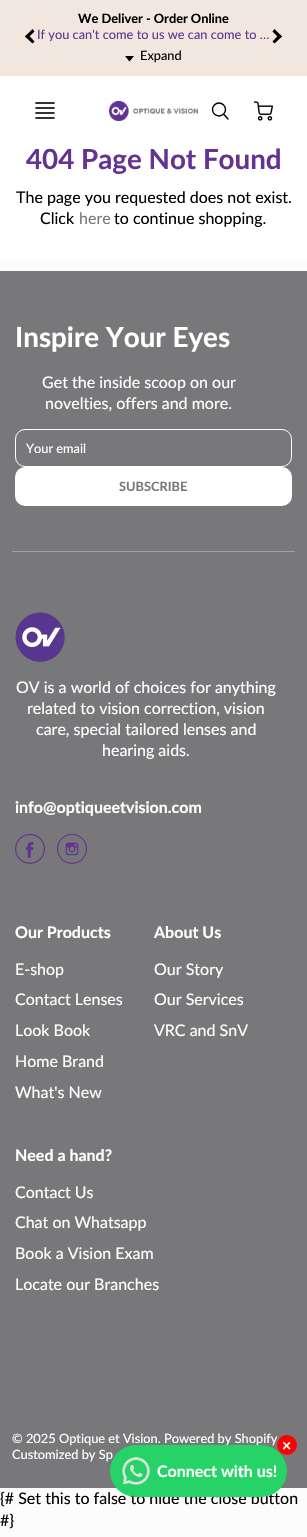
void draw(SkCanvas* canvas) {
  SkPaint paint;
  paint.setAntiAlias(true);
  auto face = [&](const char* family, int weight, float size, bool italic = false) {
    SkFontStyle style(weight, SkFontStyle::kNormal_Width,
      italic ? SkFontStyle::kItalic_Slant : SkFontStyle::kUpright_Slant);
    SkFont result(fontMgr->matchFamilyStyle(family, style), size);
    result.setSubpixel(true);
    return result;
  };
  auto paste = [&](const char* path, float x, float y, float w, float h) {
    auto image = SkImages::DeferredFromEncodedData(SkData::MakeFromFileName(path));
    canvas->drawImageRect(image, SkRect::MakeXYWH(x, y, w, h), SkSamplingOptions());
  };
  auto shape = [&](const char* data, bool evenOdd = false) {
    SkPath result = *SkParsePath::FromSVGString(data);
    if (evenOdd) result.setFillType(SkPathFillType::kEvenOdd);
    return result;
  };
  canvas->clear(0xfffcfcfc);
  paint.setColor(0xfff2e7df);
  canvas->drawRect(SkRect::MakeXYWH(0, 0, 307, 76), paint);
  paint.setColor(0xff000000);
  canvas->drawPath(shape("M32.5 43.5L25 36.5L27.5 34L34.5 41.5Z"), paint);
  canvas->drawPath(shape("M27.5 38.5L25 36.5L32.5 29L34.5 31.5Z"), paint);
  canvas->drawPath(shape("M125 56L129.5 61.5L134 56Z"), paint);
  canvas->drawPath(shape("M274.5 29L282 36.5L279.5 38.5L272.5 31.5Z"), paint);
  canvas->drawPath(shape("M279.5 34L282 36.5L274.5 43.5L272.5 41.5Z"), paint);
  paint.setColor(0xffffffff);
  canvas->drawRect(SkRect::MakeXYWH(0, 76, 307, 183), paint);
  paste("img/1.png", 35, 102, 20, 17);
  paste("img/2.png", 109, 101, 89, 20);
  paint.setStroke(true);
  paint.setStrokeWidth(1.4f);
  paint.setColor(0xff000000);
  canvas->drawCircle(219, 109.5f, 6.5f, paint);
  paint.setStrokeCap(SkPaint::kRound_Cap);
  paint.setStrokeJoin(SkPaint::kRound_Join);
  canvas->drawPath(shape("M228 119L224 114.5"), paint);
  paste("img/3.png", 253, 101, 20, 20);
  paint.setStroke(false);
  paint.setColor(0xff78787b);
  canvas->drawRect(SkRect::MakeXYWH(0, 271, 307, 1217), paint);
  paint.setStroke(true);
  paint.setStrokeWidth(1);
  paint.setStrokeCap(SkPaint::kButt_Cap);
  paint.setStrokeJoin(SkPaint::kMiter_Join);
  paint.setColor(0xffffffff);
  canvas->drawRoundRect(SkRect::MakeXYWH(15.5f, 429.5f, 276, 37), 9.5f, 9.5f, paint);
  paint.setStroke(false);
  canvas->drawRoundRect(SkRect::MakeXYWH(15, 467, 277, 39), 10, 10, paint);
  paint.setColor(0xffa1a1a3);
  canvas->drawRect(SkRect::MakeXYWH(12, 551, 283, 1), paint);
  paste("img/4.png", 15, 612, 50, 50);
  paste("img/5.png", 15, 833, 30, 31);
  paste("img/6.png", 57, 833, 30, 31);
  auto f0 = face("Lato", 700, 12.8f);
  paint.setColor(0xff000000);
  canvas->drawString("We Deliver - Order Online", 78, 23, f0, paint);
  auto f1 = face("Lato", 400, 12.8f);
  paint.setColor(0xff633392);
  canvas->drawString("If you can't come to us we can come to …", 37, 39, f1, paint);
  paint.setColor(0xff000000);
  canvas->drawString("Expand", 140, 60, f1, paint);
  auto f2 = face("Lato", 700, 27.75f);
  paint.setColor(0xff633392);
  canvas->drawString("404 Page Not Found", 26, 169, f2, paint);
  auto f3 = face("Lato", 400, 16);
  paint.setColor(0xff000000);
  canvas->drawString("The page you requested does not exist.", 16, 203, f3, paint);
  canvas->drawString("Click", 40, 224, f3, paint);
  paint.setColor(0xff78787b);
  canvas->drawString("here", 79, 224, f3, paint);
  paint.setColor(0xff000000);
  canvas->drawString("to continue shopping.", 114, 224, f3, paint);
  paint.setColor(0xffffffff);
  canvas->drawString("Inspire Your Eyes", 15, 347, f2, paint);
  canvas->drawString("Get the inside scoop on our", 42, 388, f3, paint);
  canvas->drawString("novelties, offers and more.", 45, 409, f3, paint);
  canvas->drawString("Your email", 26, 453, f1, paint);
  paint.setColor(0xff78787b);
  canvas->drawString("SUBSCRIBE", 119, 491, f0, paint);
  paint.setColor(0xffffffff);
  {
    const struct { const char* s; float x, y; } items[] = {
      {"OV is a world of choices for anything", 16, 693},
      {"related to vision correction, vision", 27, 714},
      {"care, special tailored lenses and", 36, 735},
      {"hearing aids.", 102, 756},
    };
    for (auto [s, x, y] : items) {
      canvas->drawString(s, x, y, f3, paint);
    }
  }
  auto f4 = face("Lato", 700, 16);
  canvas->drawString("info@optiqueetvision.com", 15, 813, f4, paint);
  canvas->drawString("Our Products", 15, 938, f4, paint);
  {
    const struct { const char* s; float x, y; } items[] = {
      {"E-shop", 15, 975},
      {"Contact Lenses", 15, 1005},
      {"Look Book", 15, 1036},
      {"Home Brand", 15, 1067},
      {"What's New", 15, 1098},
    };
    for (auto [s, x, y] : items) {
      canvas->drawString(s, x, y, f3, paint);
    }
  }
  canvas->drawString("About Us", 154, 938, f4, paint);
  {
    const struct { const char* s; float x, y; } items[] = {
      {"Our Story", 154, 975},
      {"Our Services", 154, 1005},
      {"VRC and SnV", 154, 1036},
    };
    for (auto [s, x, y] : items) {
      canvas->drawString(s, x, y, f3, paint);
    }
  }
  canvas->drawString("Need a hand?", 15, 1161, f4, paint);
  {
    const struct { const char* s; float x, y; } items[] = {
      {"Contact Us", 15, 1198},
      {"Chat on Whatsapp", 15, 1228},
      {"Book a Vision Exam", 15, 1259},
      {"Locate our Branches", 15, 1290},
    };
    for (auto [s, x, y] : items) {
      canvas->drawString(s, x, y, f3, paint);
    }
  }
  canvas->drawString("© 2025 Optique et Vision. Powered by Shopify", 12, 1443, f1, paint);
  canvas->drawString("Customized by Sp", 12, 1459, f1, paint);
  paint.setColor(0xff000000);
  canvas->drawString("{# Set this to false to hide the close button", 0, 1504, f3, paint);
  paint.setColor(0xff25d366);
  canvas->drawRoundRect(SkRect::MakeXYWH(110, 1445, 177, 52), 26, 26, paint);
  paint.setColor(0xffff0000);
  canvas->drawCircle(287, 1445, 10, paint);
  paint.setColor(0xffffffff);
  canvas->drawString("×", 282, 1451, f4, paint);
  canvas->drawString("Connect with us!", 157, 1477, f4, paint);
  paste("img/7.png", 122, 1457, 28, 28);
  paint.setColor(0xff000000);
  canvas->drawString("#}", 0, 1526, f3, paint);
}
